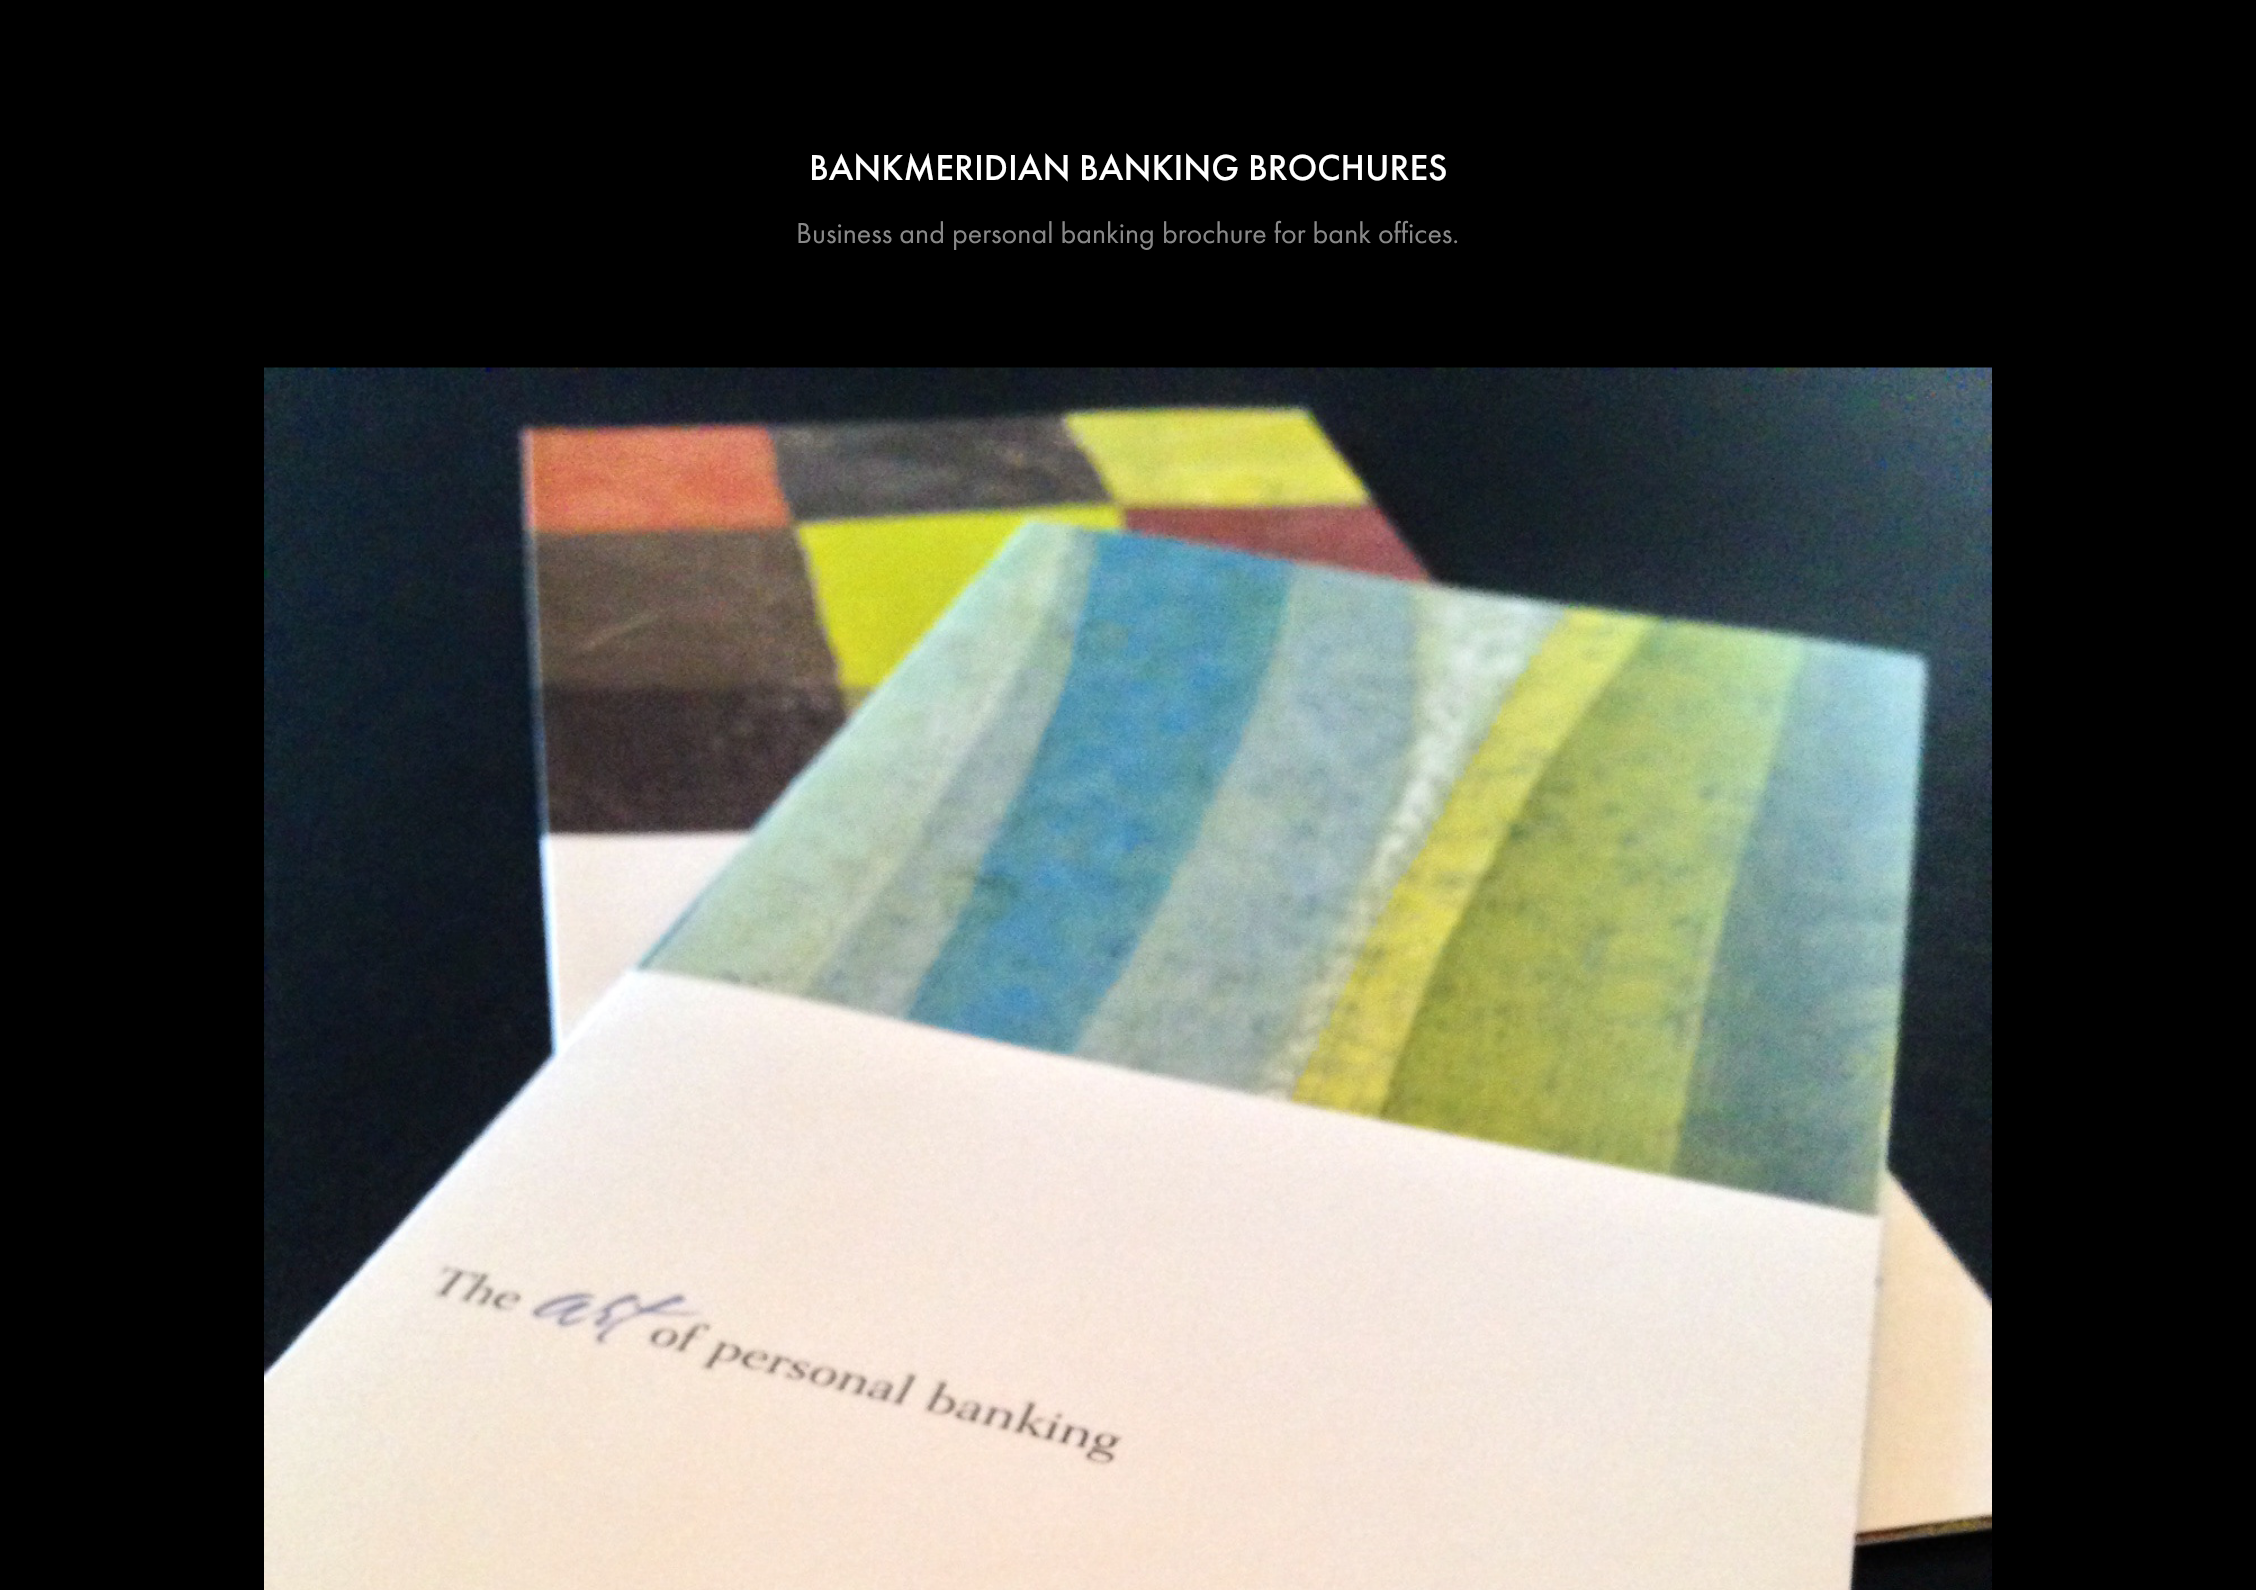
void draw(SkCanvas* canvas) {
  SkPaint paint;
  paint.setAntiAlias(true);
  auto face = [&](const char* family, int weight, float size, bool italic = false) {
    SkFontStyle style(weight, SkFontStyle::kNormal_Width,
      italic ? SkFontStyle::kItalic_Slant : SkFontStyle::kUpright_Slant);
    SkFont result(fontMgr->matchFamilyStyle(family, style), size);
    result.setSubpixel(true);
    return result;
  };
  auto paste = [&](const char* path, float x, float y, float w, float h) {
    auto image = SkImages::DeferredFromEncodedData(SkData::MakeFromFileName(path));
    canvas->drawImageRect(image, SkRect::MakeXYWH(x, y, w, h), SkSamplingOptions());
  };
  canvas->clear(0xff000000);
  paste("img/1.png", 264, 367, 1728, 1223);
  auto f0 = face("Futura PT", 500, 37.5f);
  paint.setColor(0xffffffff);
  canvas->drawString("BANKMERIDIAN BANKING BROCHURES", 809, 180, f0, paint);
  auto f1 = face("Futura PT", 400, 30);
  paint.setColor(0xff888888);
  canvas->drawString("Business and personal banking brochure for bank offices.", 796, 243, f1, paint);
}
